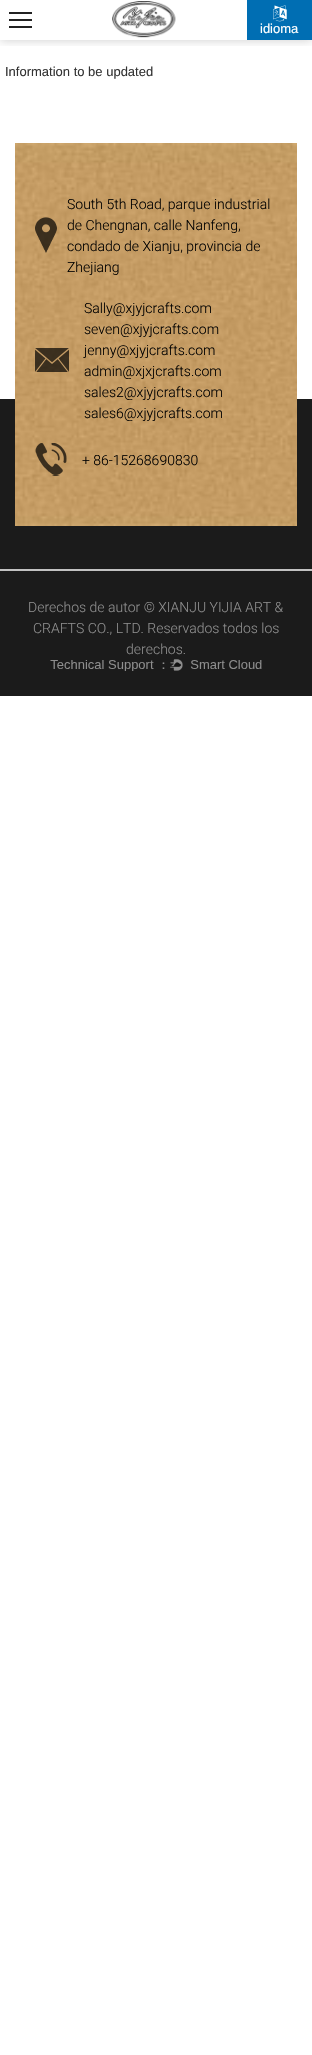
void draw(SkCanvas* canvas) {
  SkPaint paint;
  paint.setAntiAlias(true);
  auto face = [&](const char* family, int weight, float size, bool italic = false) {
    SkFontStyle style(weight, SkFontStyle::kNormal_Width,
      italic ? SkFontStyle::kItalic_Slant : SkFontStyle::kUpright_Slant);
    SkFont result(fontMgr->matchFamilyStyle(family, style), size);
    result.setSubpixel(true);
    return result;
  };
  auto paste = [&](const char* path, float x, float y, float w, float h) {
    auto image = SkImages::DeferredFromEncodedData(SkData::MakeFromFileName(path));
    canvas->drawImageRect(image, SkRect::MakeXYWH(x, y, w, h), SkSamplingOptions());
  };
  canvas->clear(0xffffffff);
  canvas->save();
  canvas->clipRect(SkRect::MakeXYWH(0, 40, 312, 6));
  paint.setColor(0x33000000);
  paint.setMaskFilter(SkMaskFilter::MakeBlur(kNormal_SkBlurStyle, 5));
  canvas->drawRect(SkRect::MakeXYWH(0, 0, 312, 40), paint);
  paint.setMaskFilter(nullptr);
  canvas->restore();
  {
    const struct { float x, y, w, h; SkColor color; } items[] = {
      {9, 12, 23, 2, 0xff222222},
      {9, 19, 23, 2, 0xff222222},
      {9, 26, 23, 2, 0xff222222},
    };
    for (auto [x, y, w, h, color] : items) {
      paint.setColor(color);
      canvas->drawRect(SkRect::MakeXYWH(x, y, w, h), paint);
    }
  }
  paste("img/1.png", 112, 1, 64, 37);
  paint.setColor(0xff006eb3);
  canvas->drawRect(SkRect::MakeXYWH(247, 0, 65, 40), paint);
  paste("img/2.png", 273, 5, 14, 17);
  paint.setColor(0xff1b1b1b);
  canvas->drawRect(SkRect::MakeXYWH(0, 399, 312, 170), paint);
  paste("img/3.png", 15, 143, 282, 383);
  paste("img/4.png", 35, 217, 22, 36);
  paste("img/5.png", 35, 348, 34, 24);
  paste("img/6.png", 35, 443, 32, 33);
  canvas->drawRect(SkRect::MakeXYWH(0, 571, 312, 125), paint);
  paint.setColor(0xffc2c2c2);
  canvas->drawRect(SkRect::MakeXYWH(0, 569, 312, 2), paint);
  paste("img/7.png", 50, 659, 212, 12);
  auto f0 = face("Liberation Sans", 400, 13);
  paint.setColor(0xffffffff);
  canvas->drawString("idioma", 260, 33, f0, paint);
  paint.setColor(0xff333333);
  canvas->drawString("Information to be updated", 5, 76, f0, paint);
  auto f1 = face("Roboto", 300, 14);
  paint.setColor(0xff000000);
  {
    const struct { const char* s; float x, y; } items[] = {
      {"South 5th Road, parque industrial", 67, 209},
      {"de Chengnan, calle Nanfeng,", 67, 230},
      {"condado de Xianju, provincia de", 67, 251},
      {"Zhejiang", 67, 272},
      {"Sally@xjyjcrafts.com", 84, 313},
      {"seven@xjyjcrafts.com", 84, 334},
      {"jenny@xjyjcrafts.com", 84, 355},
      {"admin@xjxjcrafts.com", 84, 376},
      {"sales2@xjyjcrafts.com", 84, 397},
      {"sales6@xjyjcrafts.com", 84, 418},
      {"+ 86-15268690830", 82, 465},
    };
    for (auto [s, x, y] : items) {
      canvas->drawString(s, x, y, f1, paint);
    }
  }
  paint.setColor(0xff8d8d8d);
  {
    const struct { const char* s; float x, y; } items[] = {
      {"Derechos de autor © XIANJU YIJIA ART &", 28, 612},
      {"CRAFTS CO., LTD. Reservados todos los", 33, 633},
      {"derechos.", 126, 654},
    };
    for (auto [s, x, y] : items) {
      canvas->drawString(s, x, y, f1, paint);
    }
  }
}
